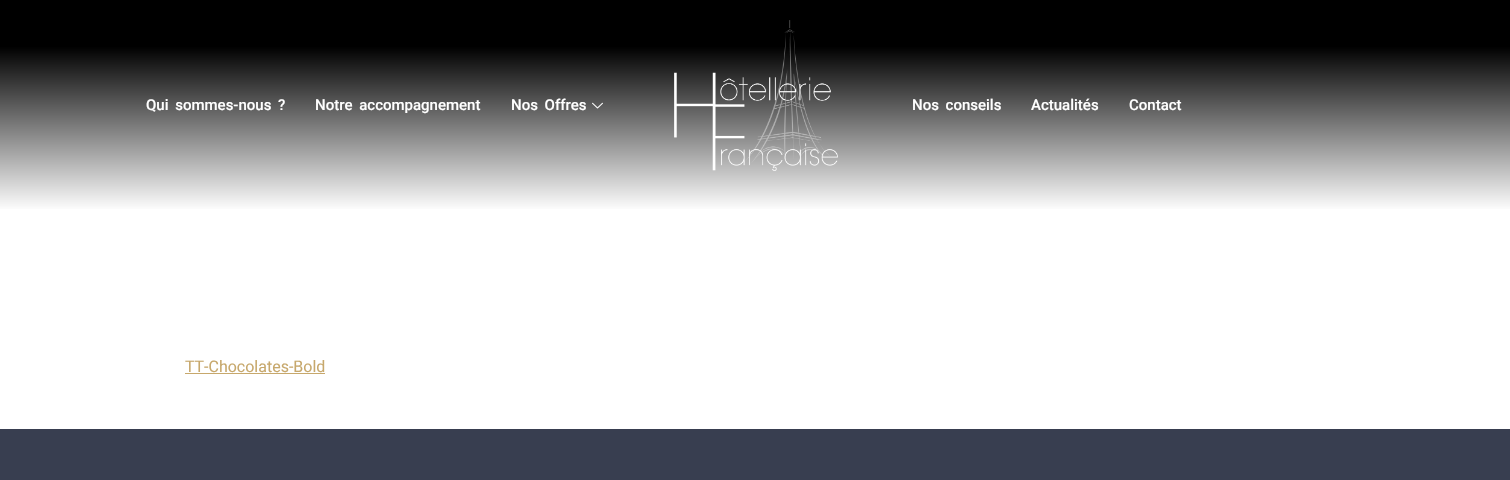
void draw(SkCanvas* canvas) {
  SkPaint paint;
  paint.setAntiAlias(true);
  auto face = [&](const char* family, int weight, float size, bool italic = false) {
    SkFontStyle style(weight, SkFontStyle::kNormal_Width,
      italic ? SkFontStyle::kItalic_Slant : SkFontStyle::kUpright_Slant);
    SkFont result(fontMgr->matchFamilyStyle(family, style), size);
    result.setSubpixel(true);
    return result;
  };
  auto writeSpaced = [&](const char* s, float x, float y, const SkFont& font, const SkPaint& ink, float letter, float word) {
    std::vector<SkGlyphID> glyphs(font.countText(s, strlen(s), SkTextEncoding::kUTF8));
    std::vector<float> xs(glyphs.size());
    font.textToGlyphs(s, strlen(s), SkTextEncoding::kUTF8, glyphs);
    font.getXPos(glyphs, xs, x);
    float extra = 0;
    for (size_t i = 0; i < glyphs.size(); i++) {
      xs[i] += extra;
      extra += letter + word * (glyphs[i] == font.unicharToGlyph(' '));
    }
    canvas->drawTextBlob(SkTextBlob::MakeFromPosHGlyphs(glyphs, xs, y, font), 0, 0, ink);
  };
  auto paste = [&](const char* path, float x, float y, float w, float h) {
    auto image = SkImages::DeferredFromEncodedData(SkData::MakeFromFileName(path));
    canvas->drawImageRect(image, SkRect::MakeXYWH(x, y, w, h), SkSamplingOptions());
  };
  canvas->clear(0xffffffff);
  {
    const SkColor colors[] = {0xff000000, 0xffffffff};
    const float stops[] = {0.22f, 1};
    const SkPoint ends[] = {{755, 0}, {755, 211}};
    paint.setShader(SkGradientShader::MakeLinear(ends, colors, stops, 2, SkTileMode::kClamp));
    paint.setAlpha(255);
  }
  canvas->drawRect(SkRect::MakeXYWH(0, 0, 1510, 209), paint);
  paste("img/1.png", 592, 102, 11, 7);
  paste("img/2.png", 674, 20, 164, 151);
  paint.setShader(nullptr);
  paint.setColor(0xffc7a86c);
  canvas->drawRect(SkRect::MakeXYWH(185, 373, 140, 1), paint);
  paint.setColor(0xff383e50);
  canvas->drawRect(SkRect::MakeXYWH(0, 429, 1510, 51), paint);
  auto f0 = face("Roboto", 500, 15);
  paint.setColor(0xffffffff);
  {
    const struct { const char* s; float x, y; } items[] = {
      {"Qui sommes-nous ?", 146, 110},
      {"Notre accompagnement", 315, 110},
      {"Nos Offres", 511, 110},
      {"Nos conseils", 912, 110},
    };
    for (auto [s, x, y] : items) {
      writeSpaced(s, x, y, f0, paint, 0, 3);
    }
  }
  canvas->drawString("Actualités", 1031, 110, f0, paint);
  canvas->drawString("Contact", 1129, 110, f0, paint);
  auto f1 = face("Roboto", 400, 16);
  paint.setColor(0xffc7a86c);
  canvas->drawString("TT-Chocolates-Bold", 185, 372, f1, paint);
}
